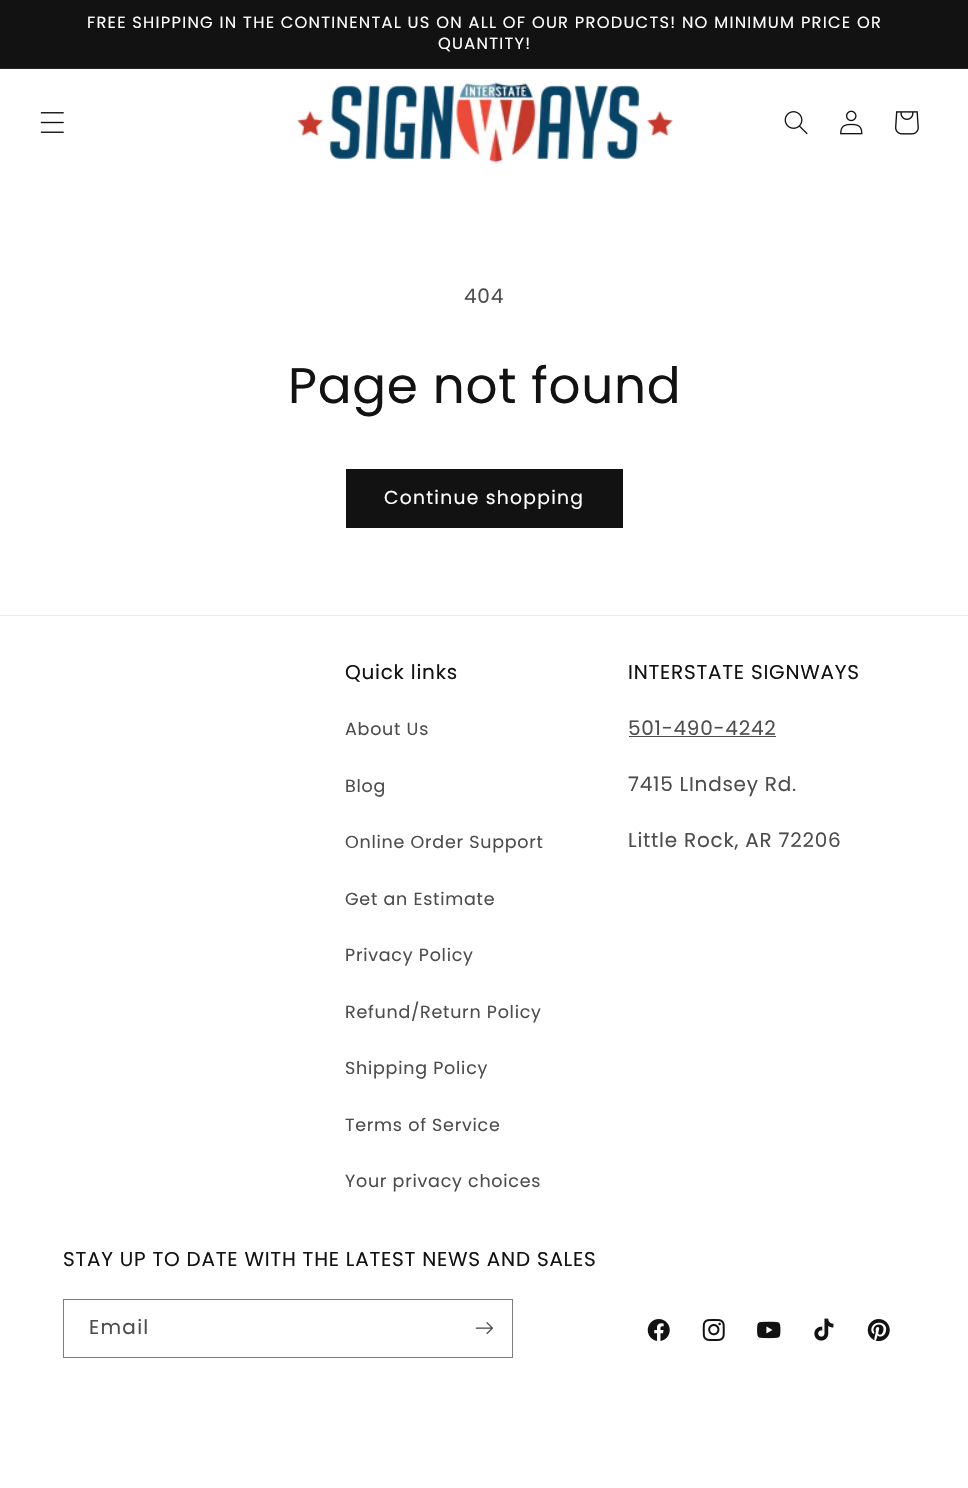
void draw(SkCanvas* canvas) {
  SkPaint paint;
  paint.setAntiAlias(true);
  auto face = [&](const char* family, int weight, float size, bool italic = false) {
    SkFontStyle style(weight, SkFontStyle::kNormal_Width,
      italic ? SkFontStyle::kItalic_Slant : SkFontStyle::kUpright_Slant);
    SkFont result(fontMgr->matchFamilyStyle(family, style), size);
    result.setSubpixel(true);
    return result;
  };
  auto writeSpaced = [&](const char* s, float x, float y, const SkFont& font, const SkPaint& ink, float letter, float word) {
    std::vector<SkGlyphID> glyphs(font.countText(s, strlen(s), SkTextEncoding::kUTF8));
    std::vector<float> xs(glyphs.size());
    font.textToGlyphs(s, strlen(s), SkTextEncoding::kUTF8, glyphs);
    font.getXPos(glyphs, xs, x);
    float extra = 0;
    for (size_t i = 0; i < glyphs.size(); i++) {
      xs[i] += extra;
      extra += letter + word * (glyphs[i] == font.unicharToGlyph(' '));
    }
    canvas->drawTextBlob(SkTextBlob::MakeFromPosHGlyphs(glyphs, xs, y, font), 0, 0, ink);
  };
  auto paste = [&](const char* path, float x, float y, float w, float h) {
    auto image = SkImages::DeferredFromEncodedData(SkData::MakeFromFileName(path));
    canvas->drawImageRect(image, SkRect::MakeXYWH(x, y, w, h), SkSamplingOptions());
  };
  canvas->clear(0xffffffff);
  paint.setColor(0xff121212);
  canvas->drawRect(SkRect::MakeXYWH(0, 0, 968, 68), paint);
  paint.setColor(0xff252525);
  canvas->drawRect(SkRect::MakeXYWH(0, 68, 968, 1), paint);
  paste("img/1.png", 40, 112, 24, 21);
  paste("img/2.png", 297, 80, 376, 85);
  paste("img/3.png", 784, 111, 24, 24);
  paste("img/4.png", 840, 110, 23, 25);
  paste("img/5.png", 895, 111, 24, 24);
  {
    const struct { float x, y, w, h; SkColor color; } items[] = {
      {346, 469, 277, 59, 0xff121212},
      {0, 615, 968, 1, 0xffececec},
      {629, 736, 147, 1, 0xff4d4d4d},
    };
    for (auto [x, y, w, h, color] : items) {
      paint.setColor(color);
      canvas->drawRect(SkRect::MakeXYWH(x, y, w, h), paint);
    }
  }
  paint.setStroke(true);
  paint.setStrokeWidth(1);
  paint.setColor(0xff7d7d7d);
  canvas->drawRect(SkRect::MakeXYWH(63.5f, 1299.5f, 449, 58), paint);
  paste("img/6.png", 475, 1322, 18, 13);
  paste("img/7.png", 647, 1319, 23, 22);
  paste("img/8.png", 702, 1319, 23, 22);
  paste("img/9.png", 757, 1321, 24, 18);
  paste("img/10.png", 814, 1318, 20, 23);
  paste("img/11.png", 867, 1319, 23, 23);
  auto f0 = face("Poppins", 400, 16.25f);
  paint.setStroke(false);
  paint.setColor(0xffffffff);
  writeSpaced("FREE SHIPPING IN THE CONTINENTAL US ON ALL OF OUR PRODUCTS! NO MINIMUM PRICE OR", 87, 28, f0, paint, 1.25f, 0);
  writeSpaced("QUANTITY!", 438, 49, f0, paint, 1.25f, 0);
  auto f1 = face("Poppins", 400, 20);
  paint.setColor(0xff4d4d4d);
  writeSpaced("404", 464, 303, f1, paint, 0.75f, 0);
  auto f2 = face("Poppins", 400, 50);
  paint.setColor(0xff121212);
  writeSpaced("Page not found", 288, 403, f2, paint, 0.75f, 0);
  auto f3 = face("Poppins", 400, 18.75f);
  paint.setColor(0xffffffff);
  writeSpaced("Continue shopping", 384, 504, f3, paint, 1.25f, 0);
  paint.setColor(0xff121212);
  writeSpaced("Quick links", 345, 679, f1, paint, 0.75f, 0);
  auto f4 = face("Poppins", 400, 17.5f);
  paint.setColor(0xff4d4d4d);
  {
    const struct { const char* s; float x, y; } items[] = {
      {"About Us", 345, 735},
      {"Blog", 345, 792},
      {"Online Order Support", 345, 848},
      {"Get an Estimate", 345, 905},
      {"Privacy Policy", 345, 961},
      {"Refund/Return Policy", 345, 1018},
      {"Shipping Policy", 345, 1074},
      {"Terms of Service", 345, 1131},
      {"Your privacy choices", 345, 1187},
    };
    for (auto [s, x, y] : items) {
      writeSpaced(s, x, y, f4, paint, 0.75f, 0);
    }
  }
  paint.setColor(0xff121212);
  writeSpaced("INTERSTATE SIGNWAYS", 628, 679, f1, paint, 0.75f, 0);
  paint.setColor(0xff4d4d4d);
  {
    const struct { const char* s; float x, y; } items[] = {
      {"501-490-4242", 628, 735},
      {"7415 LIndsey Rd.", 628, 791},
      {"Little Rock, AR 72206", 628, 847},
    };
    for (auto [s, x, y] : items) {
      writeSpaced(s, x, y, f1, paint, 0.75f, 0);
    }
  }
  paint.setColor(0xff121212);
  writeSpaced("STAY UP TO DATE WITH THE LATEST NEWS AND SALES", 63, 1266, f1, paint, 0.75f, 0);
  paint.setColor(0xff4d4d4d);
  writeSpaced("Email", 89, 1334, f1, paint, 1.25f, 0);
}
